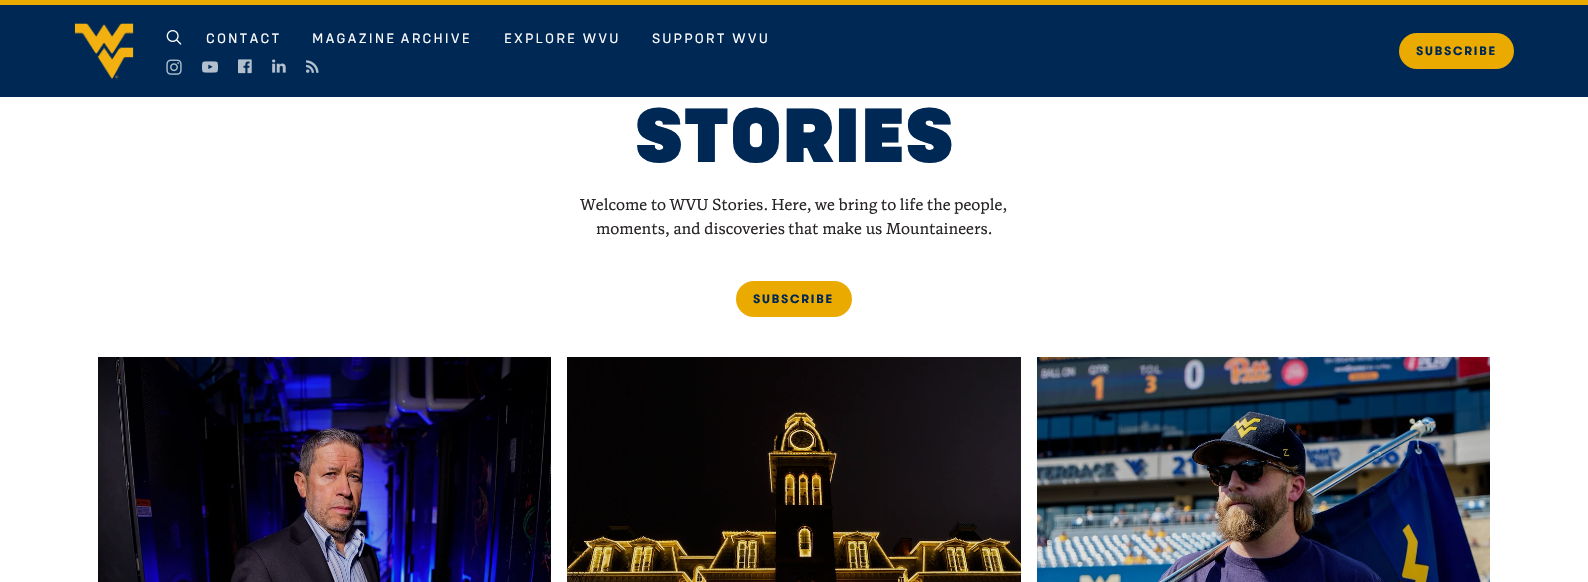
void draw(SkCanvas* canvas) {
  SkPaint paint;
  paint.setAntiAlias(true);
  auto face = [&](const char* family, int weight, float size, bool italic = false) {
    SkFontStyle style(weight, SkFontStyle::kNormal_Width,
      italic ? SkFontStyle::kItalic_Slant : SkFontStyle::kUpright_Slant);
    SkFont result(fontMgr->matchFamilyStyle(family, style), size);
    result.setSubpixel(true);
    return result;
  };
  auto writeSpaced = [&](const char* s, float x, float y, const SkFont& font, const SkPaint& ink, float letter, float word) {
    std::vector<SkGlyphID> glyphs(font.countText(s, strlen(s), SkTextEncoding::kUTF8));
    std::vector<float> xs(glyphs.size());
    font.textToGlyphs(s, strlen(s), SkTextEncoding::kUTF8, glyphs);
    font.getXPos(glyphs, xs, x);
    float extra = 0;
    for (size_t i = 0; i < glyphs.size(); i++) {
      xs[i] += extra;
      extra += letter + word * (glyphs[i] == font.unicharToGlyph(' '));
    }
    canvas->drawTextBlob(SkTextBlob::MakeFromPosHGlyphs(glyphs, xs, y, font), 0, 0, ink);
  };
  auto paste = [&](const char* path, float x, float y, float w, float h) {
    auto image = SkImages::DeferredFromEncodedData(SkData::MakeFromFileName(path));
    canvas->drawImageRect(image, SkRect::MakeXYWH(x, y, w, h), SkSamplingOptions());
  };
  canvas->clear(0xffffffff);
  paint.setColor(0xff002855);
  canvas->drawRect(SkRect::MakeXYWH(0, 5, 1588, 92), paint);
  paint.setColor(0xffeaaa00);
  canvas->drawRect(SkRect::MakeXYWH(0, 0, 1588, 5), paint);
  paste("img/1.png", 74, 23, 60, 56);
  paste("img/2.png", 166, 30, 16, 15);
  paste("img/3.png", 166, 59, 16, 16);
  paste("img/4.png", 202, 61, 16, 12);
  paste("img/5.png", 238, 59, 14, 15);
  paste("img/6.png", 272, 59, 14, 14);
  paste("img/7.png", 306, 60, 13, 13);
  canvas->drawRoundRect(SkRect::MakeXYWH(1399, 33, 115, 36), 18, 18, paint);
  canvas->drawRoundRect(SkRect::MakeXYWH(736, 281, 116, 36), 18, 18, paint);
  paste("img/8.png", 98, 357, 453, 225);
  paste("img/9.png", 567, 357, 454, 225);
  paste("img/10.png", 1037, 357, 453, 225);
  auto f0 = face("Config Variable", 400, 14);
  paint.setColor(0xffffffff);
  writeSpaced("CONTACT", 206, 43, f0, paint, 2.1f, 0);
  writeSpaced("MAGAZINE ARCHIVE", 312, 43, f0, paint, 2.1f, -1);
  writeSpaced("EXPLORE WVU", 504, 43, f0, paint, 2.1f, 0);
  writeSpaced("SUPPORT WVU", 652, 43, f0, paint, 2.1f, 0);
  auto f1 = face("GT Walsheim", 700, 12);
  paint.setColor(0xff002855);
  writeSpaced("SUBSCRIBE", 1416, 55, f1, paint, 1.75f, 0);
  auto f2 = face("Config Variable", 900, 80);
  canvas->drawString("STORIES", 635, 162, f2, paint);
  auto f3 = face("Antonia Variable", 400, 16);
  paint.setColor(0xff292525);
  writeSpaced("Welcome to WVU Stories. Here, we bring to life the people,", 580, 210, f3, paint, 0, -0.25f);
  canvas->drawString("moments, and discoveries", 596, 234, f3, paint);
  canvas->drawString("that make us Mountaineers.", 788, 234, f3, paint);
  paint.setColor(0xff002855);
  writeSpaced("SUBSCRIBE", 753, 303, f1, paint, 1.75f, 0);
}
